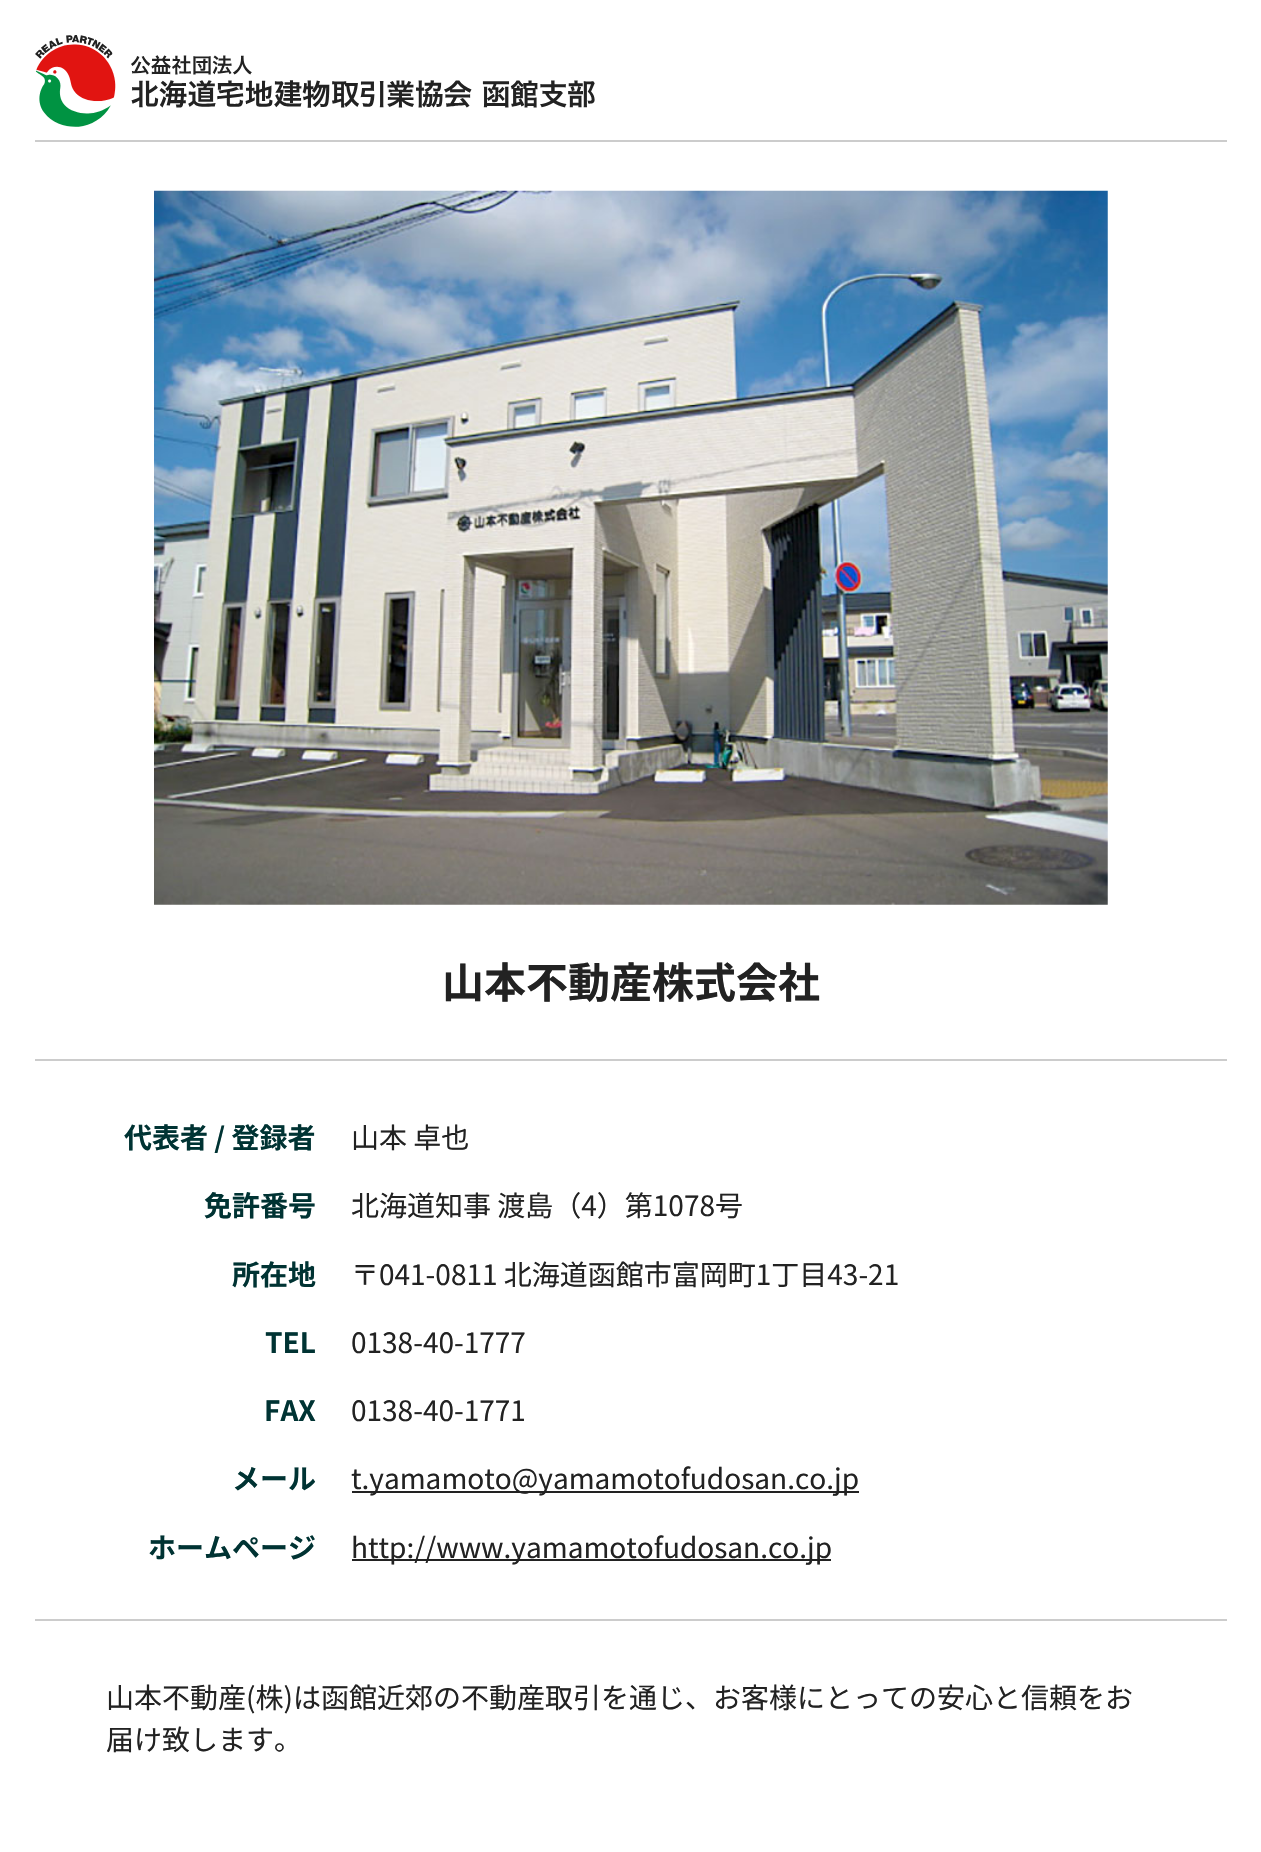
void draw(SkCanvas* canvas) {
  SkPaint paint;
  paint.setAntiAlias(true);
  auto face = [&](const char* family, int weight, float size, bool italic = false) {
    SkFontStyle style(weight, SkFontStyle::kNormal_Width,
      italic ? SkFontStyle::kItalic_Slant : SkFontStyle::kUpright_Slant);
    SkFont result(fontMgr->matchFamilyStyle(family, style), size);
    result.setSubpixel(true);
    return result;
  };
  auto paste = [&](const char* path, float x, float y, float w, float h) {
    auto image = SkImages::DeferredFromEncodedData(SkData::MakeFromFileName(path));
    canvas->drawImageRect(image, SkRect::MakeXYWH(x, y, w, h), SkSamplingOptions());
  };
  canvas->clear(0xffffffff);
  paste("img/1.png", 35, 35, 560, 92);
  paint.setColor(0xffcccccc);
  canvas->drawRect(SkRect::MakeXYWH(35, 140, 1192, 2), paint);
  paste("img/2.png", 154, 190, 954, 715);
  {
    const struct { float x, y, w, h; SkColor color; } items[] = {
      {35, 1059, 1192, 2, 0xffcccccc},
      {352, 1491, 507, 2, 0xff222222},
      {352, 1559, 479, 2, 0xff222222},
      {35, 1619, 1192, 2, 0xffcccccc},
    };
    for (auto [x, y, w, h, color] : items) {
      paint.setColor(color);
      canvas->drawRect(SkRect::MakeXYWH(x, y, w, h), paint);
    }
  }
  auto f0 = face("Noto Sans JP", 700, 42);
  paint.setColor(0xff222222);
  canvas->drawString("山本不動産株式会社", 442, 998, f0, paint);
  auto f1 = face("Noto Sans JP", 700, 28);
  paint.setColor(0xff003333);
  canvas->drawString("代表者 / 登録者", 124, 1148, f1, paint);
  auto f2 = face("Noto Sans JP", 400, 28);
  paint.setColor(0xff222222);
  canvas->drawString("山本 卓也", 351, 1148, f2, paint);
  paint.setColor(0xff003333);
  canvas->drawString("免許番号", 204, 1216, f1, paint);
  paint.setColor(0xff222222);
  canvas->drawString("北海道知事 渡島（4）第1078号", 351, 1216, f2, paint);
  paint.setColor(0xff003333);
  canvas->drawString("所在地", 232, 1285, f1, paint);
  paint.setColor(0xff222222);
  canvas->drawString("〒041-0811 北海道函館市富岡町1丁目43-21", 351, 1285, f2, paint);
  paint.setColor(0xff003333);
  canvas->drawString("TEL", 265, 1353, f1, paint);
  paint.setColor(0xff222222);
  canvas->drawString("0138-40-1777", 351, 1353, f2, paint);
  paint.setColor(0xff003333);
  canvas->drawString("FAX", 264, 1421, f1, paint);
  paint.setColor(0xff222222);
  canvas->drawString("0138-40-1771", 351, 1421, f2, paint);
  paint.setColor(0xff003333);
  canvas->drawString("メール", 232, 1489, f1, paint);
  paint.setColor(0xff222222);
  canvas->drawString("t.yamamoto@yamamotofudosan.co.jp", 351, 1489, f2, paint);
  paint.setColor(0xff003333);
  canvas->drawString("ホームページ", 148, 1558, f1, paint);
  paint.setColor(0xff222222);
  {
    const struct { const char* s; float x, y; } items[] = {
      {"http://www.yamamotofudosan.co.jp", 351, 1558},
      {"山本不動産(株)は函館近郊の不動産取引を通じ、お客様にとっての安心と信頼をお", 106, 1708},
      {"届け致します。", 106, 1750},
    };
    for (auto [s, x, y] : items) {
      canvas->drawString(s, x, y, f2, paint);
    }
  }
}
